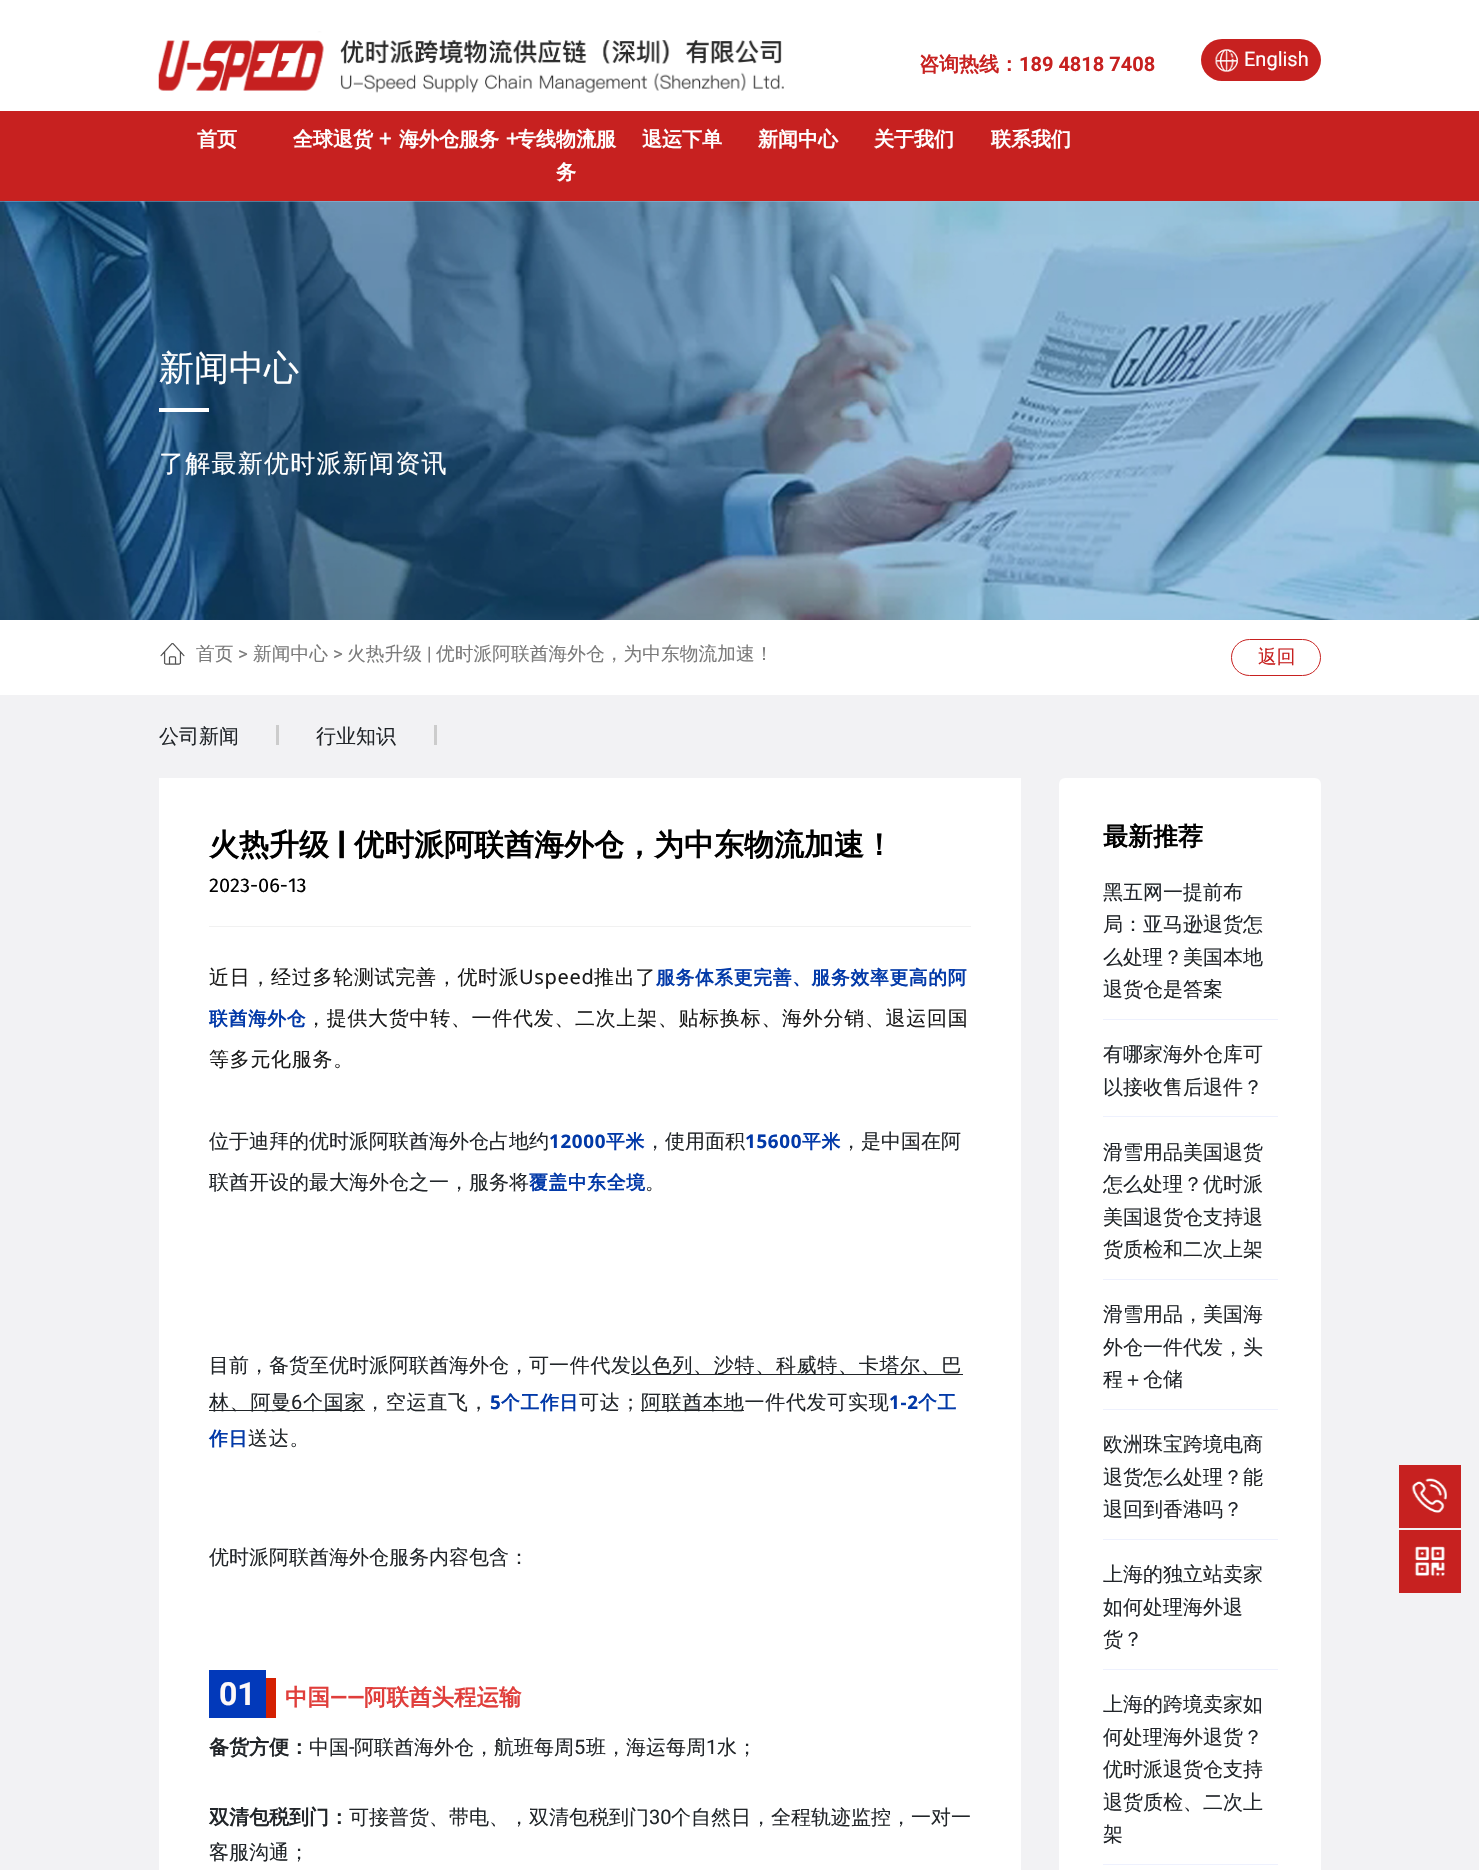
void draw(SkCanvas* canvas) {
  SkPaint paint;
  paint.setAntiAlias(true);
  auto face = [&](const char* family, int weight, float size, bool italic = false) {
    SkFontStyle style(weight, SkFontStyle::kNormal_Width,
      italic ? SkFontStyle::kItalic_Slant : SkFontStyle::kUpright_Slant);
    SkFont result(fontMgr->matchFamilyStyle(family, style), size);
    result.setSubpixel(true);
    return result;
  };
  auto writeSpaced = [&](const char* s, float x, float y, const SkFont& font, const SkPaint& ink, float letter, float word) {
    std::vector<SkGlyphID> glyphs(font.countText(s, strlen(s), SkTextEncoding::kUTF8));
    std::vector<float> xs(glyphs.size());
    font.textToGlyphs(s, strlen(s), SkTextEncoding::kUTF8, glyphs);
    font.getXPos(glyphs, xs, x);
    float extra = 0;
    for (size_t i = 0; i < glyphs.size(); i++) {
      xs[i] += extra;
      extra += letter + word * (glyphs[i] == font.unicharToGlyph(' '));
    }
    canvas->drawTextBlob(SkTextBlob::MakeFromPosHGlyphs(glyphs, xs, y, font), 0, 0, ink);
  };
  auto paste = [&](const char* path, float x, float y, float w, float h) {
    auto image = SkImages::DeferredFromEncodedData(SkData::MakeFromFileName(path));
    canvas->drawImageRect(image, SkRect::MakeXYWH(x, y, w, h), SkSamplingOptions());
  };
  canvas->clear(0xffffffff);
  paint.setColor(0xff9fc6e2);
  canvas->drawRect(SkRect::MakeXYWH(0, 201, 1479, 1), paint);
  paste("img/1.png", 158, 31, 626, 62);
  paint.setColor(0xffc72120);
  canvas->drawRoundRect(SkRect::MakeXYWH(1201, 39, 120, 42), 21, 21, paint);
  paste("img/2.png", 1215, 49, 23, 23);
  canvas->drawRect(SkRect::MakeXYWH(0, 111, 1479, 90), paint);
  paste("img/3.png", 0, 201, 1479, 419);
  paint.setColor(0xffffffff);
  canvas->drawRect(SkRect::MakeXYWH(159, 408, 50, 4), paint);
  paste("img/4.png", 160, 643, 25, 22);
  paint.setStroke(true);
  paint.setStrokeWidth(1);
  paint.setColor(0xffc72120);
  canvas->drawRoundRect(SkRect::MakeXYWH(1231.5f, 639.5f, 89, 36), 18, 18, paint);
  paint.setStroke(false);
  {
    const struct { float x, y, w, h; SkColor color; } items[] = {
      {0, 695, 1479, 1175, 0xfff2f2f4},
      {276, 725, 3, 20, 0xffcccccc},
      {434, 725, 3, 20, 0xffcccccc},
      {159, 778, 862, 1092, 0xffffffff},
      {209, 926, 762, 1, 0xfff1f1f1},
      {631, 1374, 332, 1, 0xff212529},
      {209, 1410, 156, 1, 0xff212529},
      {641, 1410, 103, 1, 0xff212529},
      {209, 1670, 57, 48, 0xff0239ba},
      {266, 1678, 10, 40, 0xffd42002},
    };
    for (auto [x, y, w, h, color] : items) {
      paint.setColor(color);
      canvas->drawRect(SkRect::MakeXYWH(x, y, w, h), paint);
    }
  }
  paint.setColor(0xffffffff);
  canvas->drawRoundRect(SkRect::MakeXYWH(1059, 778, 262, 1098), 6, 6, paint);
  {
    const struct { float x, y, w, h; SkColor color; } items[] = {
      {1103, 1019, 175, 1, 0xffeef1fe},
      {1103, 1116, 175, 1, 0xffeef1fe},
      {1103, 1279, 175, 1, 0xffeef1fe},
      {1103, 1409, 175, 1, 0xffeef1fe},
      {1103, 1539, 175, 1, 0xffeef1fe},
      {1103, 1669, 175, 1, 0xffeef1fe},
      {1103, 1864, 175, 1, 0xffeef1fe},
      {1399, 1465, 62, 63, 0xffc72120},
    };
    for (auto [x, y, w, h, color] : items) {
      paint.setColor(color);
      canvas->drawRect(SkRect::MakeXYWH(x, y, w, h), paint);
    }
  }
  paste("img/5.png", 1411, 1478, 36, 35);
  canvas->drawRect(SkRect::MakeXYWH(1399, 1530, 62, 63), paint);
  paste("img/6.png", 1414, 1546, 31, 30);
  auto f0 = face("WenQuanYi Zen Hei", 700, 20);
  canvas->drawString("咨询热线：", 919, 71, f0, paint);
  auto f1 = face("Roboto", 700, 20);
  canvas->drawString("189 4818 7408", 1019, 71, f1, paint);
  auto f2 = face("Roboto", 400, 20);
  paint.setColor(0xffffffff);
  canvas->drawString("English", 1244, 66, f2, paint);
  canvas->drawString("首页", 197, 146, f0, paint);
  canvas->drawString("全球退货", 293, 146, f0, paint);
  auto f3 = face("Roboto", 400, 22.5f);
  canvas->drawString("+", 379, 146, f3, paint);
  canvas->drawString("海外仓服务", 399, 146, f0, paint);
  canvas->drawString("+", 506, 146, f3, paint);
  canvas->drawString("专线物流服", 516, 146, f0, paint);
  canvas->drawString("+", 582, 146, f3, paint);
  {
    const struct { const char* s; float x, y; } items[] = {
      {"务", 556, 179},
      {"退运下单", 642, 146},
      {"新闻中心", 758, 146},
      {"关于我们", 874, 146},
      {"联系我们", 991, 146},
    };
    for (auto [s, x, y] : items) {
      canvas->drawString(s, x, y, f0, paint);
    }
  }
  auto f4 = face("WenQuanYi Zen Hei", 500, 35);
  canvas->drawString("新闻中心", 159, 380, f4, paint);
  auto f5 = face("WenQuanYi Zen Hei", 500, 25);
  writeSpaced("了解最新优时派新闻资讯", 159, 472, f5, paint, 1.25f, 0);
  auto f6 = face("WenQuanYi Zen Hei", 500, 18.75f);
  paint.setColor(0xff7b7b7b);
  canvas->drawString("首页", 196, 660, f6, paint);
  auto f7 = face("Roboto", 400, 18.75f);
  canvas->drawString(">", 238, 660, f7, paint);
  canvas->drawString("新闻中心", 253, 660, f6, paint);
  canvas->drawString(">", 333, 660, f7, paint);
  canvas->drawString("火热升级", 347, 660, f6, paint);
  canvas->drawString("|", 427, 660, f7, paint);
  canvas->drawString("优时派阿联酋海外仓，为中东物流加速！", 436, 660, f6, paint);
  paint.setColor(0xffc72120);
  canvas->drawString("返回", 1258, 663, f6, paint);
  auto f8 = face("WenQuanYi Zen Hei", 500, 20);
  paint.setColor(0xff212529);
  canvas->drawString("公司新闻", 159, 743, f8, paint);
  canvas->drawString("行业知识", 316, 743, f8, paint);
  auto f9 = face("WenQuanYi Zen Hei", 700, 30);
  paint.setColor(0xff000000);
  canvas->drawString("火热升级", 209, 855, f9, paint);
  auto f10 = face("Fira Sans", 700, 30);
  canvas->drawString("|", 336, 855, f10, paint);
  canvas->drawString("优时派阿联酋海外仓，为中东物流加速！", 354, 855, f9, paint);
  auto f11 = face("Fira Sans", 400, 20);
  canvas->drawString("2023-06-13", 209, 892, f11, paint);
  paint.setColor(0xff1a1a1a);
  writeSpaced("近日，经过多轮测试完善，优时派", 209, 984, f8, paint, 0.7f, 0);
  auto f12 = face("Noto Sans", 400, 20);
  writeSpaced("Uspeed", 519, 984, f12, paint, 0.7f, 0);
  writeSpaced("推出了", 594, 984, f8, paint, 0.7f, 0);
  auto f13 = face("WenQuanYi Zen Hei", 700, 18.75f);
  paint.setColor(0xff0239a8);
  writeSpaced("服务体系更完善、服务效率更高的阿", 656, 984, f13, paint, 0.7f, 0);
  writeSpaced("联酋海外仓", 209, 1025, f13, paint, 0.7f, 0);
  paint.setColor(0xff1a1a1a);
  writeSpaced("，提供大货中转、一件代发、二次上架、贴标换标、海外分销、退运回国", 306, 1025, f8, paint, 0.7f, 0);
  writeSpaced("等多元化服务。", 209, 1066, f8, paint, 0.7f, 0);
  paint.setColor(0xff212529);
  canvas->drawString("位于迪拜的优时派阿联酋海外仓占地约", 209, 1148, f8, paint);
  auto f14 = face("Noto Sans", 700, 18.75f);
  paint.setColor(0xff0239a8);
  writeSpaced("12000", 549, 1148, f14, paint, 0.7f, 0);
  writeSpaced("平米", 606, 1148, f13, paint, 0.7f, 0);
  paint.setColor(0xff212529);
  canvas->drawString("，使用面积", 645, 1148, f8, paint);
  paint.setColor(0xff0239a8);
  writeSpaced("15600", 745, 1148, f14, paint, 0.7f, 0);
  writeSpaced("平米", 802, 1148, f13, paint, 0.7f, 0);
  paint.setColor(0xff212529);
  canvas->drawString("，是中国在阿", 841, 1148, f8, paint);
  canvas->drawString("联酋开设的最大海外仓之一，服务将", 209, 1189, f8, paint);
  paint.setColor(0xff0239a8);
  writeSpaced("覆盖中东全境", 529, 1189, f13, paint, 0.7f, 0);
  paint.setColor(0xff212529);
  canvas->drawString("。", 645, 1189, f8, paint);
  canvas->drawString("目前，备货至优时派阿联酋海外仓，可", 209, 1372, f8, paint);
  {
    const struct { const char* s; float x, y; } items[] = {
      {"一件代发", 549, 1372},
      {"以色列、沙特、科威特、卡塔尔、巴", 631, 1372},
      {"林、阿曼", 209, 1409},
    };
    for (auto [s, x, y] : items) {
      writeSpaced(s, x, y, f8, paint, 0.7f, 0);
    }
  }
  writeSpaced("6", 291, 1409, f2, paint, 0.7f, 0);
  writeSpaced("个国家，空运直飞，", 303, 1409, f8, paint, 0.7f, 0);
  paint.setColor(0xff0239a8);
  writeSpaced("5", 490, 1409, f14, paint, 0.7f, 0);
  writeSpaced("个工作日", 501, 1409, f13, paint, 0.7f, 0);
  paint.setColor(0xff212529);
  writeSpaced("可达；", 579, 1409, f8, paint, 0.7f, 0);
  writeSpaced("阿联酋本地一件代发可实现", 641, 1409, f8, paint, 0.7f, 0);
  paint.setColor(0xff0239a8);
  writeSpaced("1-2", 889, 1409, f14, paint, 0.7f, 0);
  writeSpaced("个工", 918, 1409, f13, paint, 0.7f, 0);
  writeSpaced("作日", 209, 1445, f13, paint, 0.7f, 0);
  paint.setColor(0xff212529);
  writeSpaced("送达。", 248, 1445, f8, paint, 0.7f, 0);
  canvas->drawString("优时派阿联酋海外仓服务内容包含：", 209, 1564, f8, paint);
  auto f15 = face("Roboto", 700, 32);
  paint.setColor(0xfffef8f8);
  canvas->drawString("01", 219, 1705, f15, paint);
  auto f16 = face("WenQuanYi Zen Hei", 700, 22.5f);
  paint.setColor(0xffe03e3b);
  canvas->drawString("中国", 285, 1705, f16, paint);
  auto f17 = face("Roboto", 700, 22.5f);
  canvas->drawString("——", 330, 1705, f17, paint);
  canvas->drawString("阿联酋头程运输", 364, 1705, f16, paint);
  paint.setColor(0xff212529);
  canvas->drawString("备货方便：", 209, 1754, f0, paint);
  canvas->drawString("中国", 309, 1754, f8, paint);
  canvas->drawString("-", 349, 1754, f2, paint);
  canvas->drawString("阿联酋海外仓，航班每周", 354, 1754, f8, paint);
  canvas->drawString("5", 574, 1754, f2, paint);
  canvas->drawString("班，海运每周", 586, 1754, f8, paint);
  canvas->drawString("1", 706, 1754, f2, paint);
  canvas->drawString("水；", 717, 1754, f8, paint);
  canvas->drawString("双清包税到门：", 209, 1824, f0, paint);
  canvas->drawString("可接普货、带电、，双清包税到门", 349, 1824, f8, paint);
  canvas->drawString("30", 649, 1824, f2, paint);
  canvas->drawString("个自然日，全程轨迹监控，一对一", 671, 1824, f8, paint);
  canvas->drawString("客服沟通；", 209, 1859, f8, paint);
  auto f18 = face("WenQuanYi Zen Hei", 700, 25);
  paint.setColor(0xff000000);
  canvas->drawString("最新推荐", 1103, 845, f18, paint);
  paint.setColor(0xff212529);
  {
    const struct { const char* s; float x, y; } items[] = {
      {"黑五网一提前布", 1103, 899},
      {"局：亚马逊退货怎", 1103, 931},
      {"么处理？美国本地", 1103, 964},
      {"退货仓是答案", 1103, 996},
      {"有哪家海外仓库可", 1103, 1061},
      {"以接收售后退件？", 1103, 1094},
      {"滑雪用品美国退货", 1103, 1159},
      {"怎么处理？优时派", 1103, 1191},
      {"美国退货仓支持退", 1103, 1224},
      {"货质检和二次上架", 1103, 1256},
      {"滑雪用品，美国海", 1103, 1321},
      {"外仓一件代发，头", 1103, 1354},
      {"程＋仓储", 1103, 1386},
      {"欧洲珠宝跨境电商", 1103, 1451},
      {"退货怎么处理？能", 1103, 1484},
      {"退回到香港吗？", 1103, 1516},
      {"上海的独立站卖家", 1103, 1581},
      {"如何处理海外退", 1103, 1614},
      {"货？", 1103, 1646},
      {"上海的跨境卖家如", 1103, 1711},
      {"何处理海外退货？", 1103, 1744},
      {"优时派退货仓支持", 1103, 1776},
      {"退货质检、二次上", 1103, 1809},
      {"架", 1103, 1841},
    };
    for (auto [s, x, y] : items) {
      canvas->drawString(s, x, y, f8, paint);
    }
  }
}
